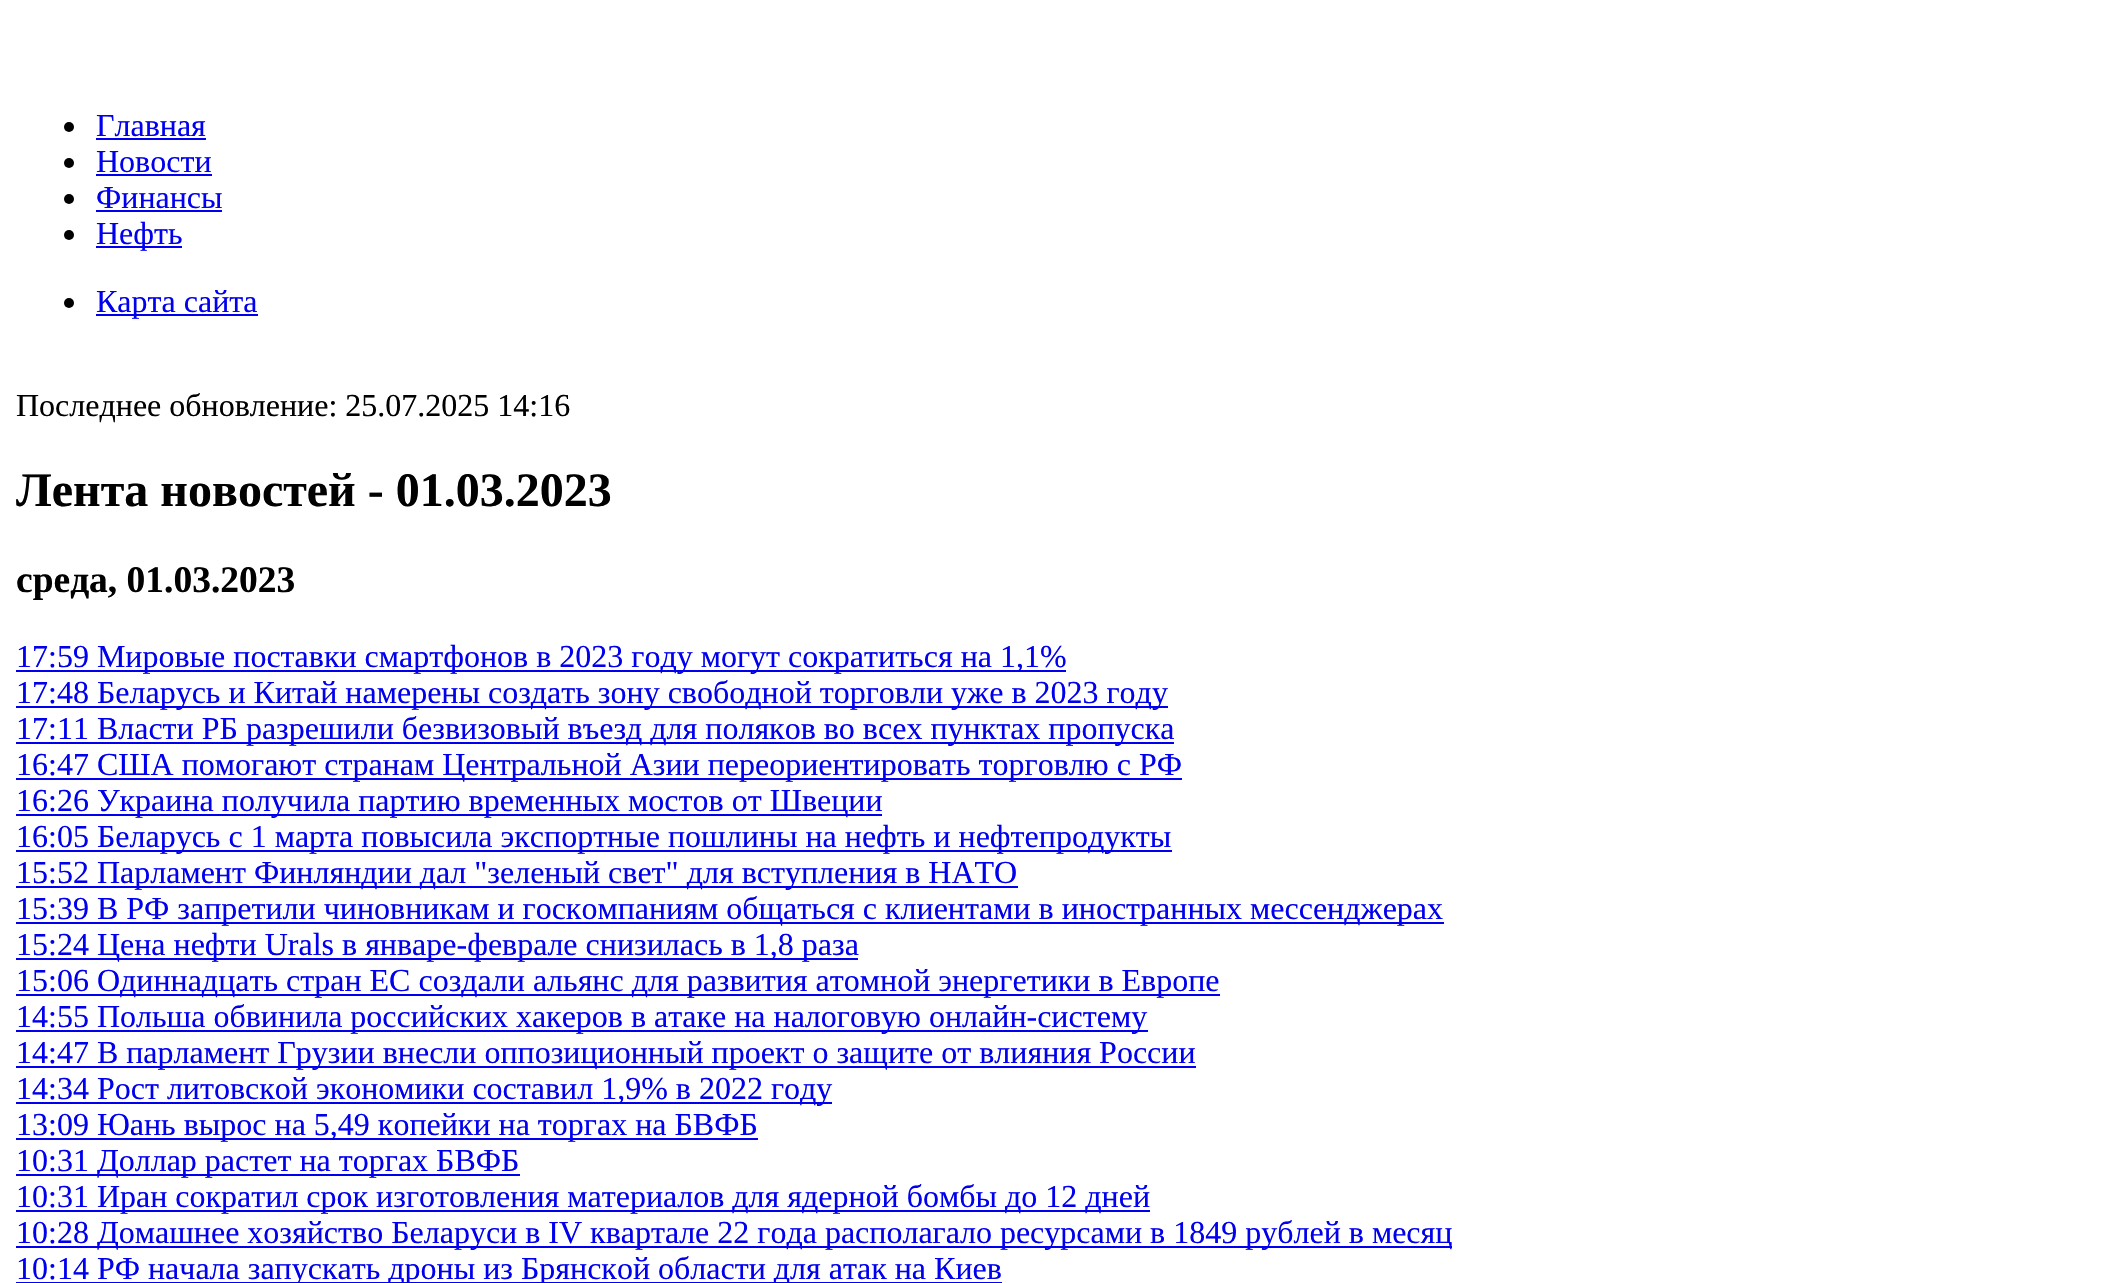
void draw(SkCanvas* canvas) {
  SkPaint paint;
  paint.setAntiAlias(true);
  auto face = [&](const char* family, int weight, float size, bool italic = false) {
    SkFontStyle style(weight, SkFontStyle::kNormal_Width,
      italic ? SkFontStyle::kItalic_Slant : SkFontStyle::kUpright_Slant);
    SkFont result(fontMgr->matchFamilyStyle(family, style), size);
    result.setSubpixel(true);
    return result;
  };
  canvas->clear(0xffffffff);
  paint.setColor(0xff000000);
  canvas->drawCircle(69, 127, 5, paint);
  paint.setColor(0xff0000ee);
  canvas->drawRect(SkRect::MakeXYWH(96, 138, 110, 2), paint);
  paint.setColor(0xff000000);
  canvas->drawCircle(69, 163, 5, paint);
  paint.setColor(0xff0000ee);
  canvas->drawRect(SkRect::MakeXYWH(96, 174, 116, 2), paint);
  paint.setColor(0xff000000);
  canvas->drawCircle(69, 199, 5, paint);
  paint.setColor(0xff0000ee);
  canvas->drawRect(SkRect::MakeXYWH(96, 210, 126, 2), paint);
  paint.setColor(0xff000000);
  canvas->drawCircle(69, 235, 5, paint);
  paint.setColor(0xff0000ee);
  canvas->drawRect(SkRect::MakeXYWH(96, 246, 86, 2), paint);
  paint.setColor(0xff000000);
  canvas->drawCircle(69, 303, 5, paint);
  {
    const struct { float x, y, w, h; SkColor color; } items[] = {
      {96, 314, 162, 2, 0xff0000ee},
      {16, 670, 1050, 2, 0xff0000ee},
      {16, 706, 1152, 2, 0xff0000ee},
      {16, 742, 1158, 2, 0xff0000ee},
      {16, 778, 1166, 2, 0xff0000ee},
      {16, 814, 866, 2, 0xff0000ee},
      {16, 850, 1156, 2, 0xff0000ee},
      {16, 886, 1002, 2, 0xff0000ee},
      {16, 922, 1428, 2, 0xff0000ee},
      {16, 958, 842, 2, 0xff0000ee},
      {16, 994, 1204, 2, 0xff0000ee},
      {16, 1030, 1132, 2, 0xff0000ee},
      {16, 1066, 1180, 2, 0xff0000ee},
      {16, 1102, 816, 2, 0xff0000ee},
      {16, 1138, 742, 2, 0xff0000ee},
      {16, 1174, 504, 2, 0xff0000ee},
      {16, 1210, 1134, 2, 0xff0000ee},
      {16, 1246, 1436, 2, 0xff0000ee},
      {16, 1282, 986, 1, 0xff0000ee},
    };
    for (auto [x, y, w, h, color] : items) {
      paint.setColor(color);
      canvas->drawRect(SkRect::MakeXYWH(x, y, w, h), paint);
    }
  }
  auto f0 = face("Liberation Serif", 400, 32);
  {
    const struct { const char* s; float x, y; } items[] = {
      {"Главная", 96, 136},
      {"Новости", 96, 172},
      {"Финансы", 96, 208},
      {"Нефть", 96, 244},
      {"Карта сайта", 96, 312},
    };
    for (auto [s, x, y] : items) {
      canvas->drawString(s, x, y, f0, paint);
    }
  }
  paint.setColor(0xff000000);
  canvas->drawString("Последнее обновление: 25.07.2025 14:16", 16, 416, f0, paint);
  auto f1 = face("Liberation Serif", 700, 48);
  canvas->drawString("Лента новостей - 01.03.2023", 16, 506, f1, paint);
  auto f2 = face("Liberation Serif", 700, 37.5f);
  canvas->drawString("среда, 01.03.2023", 16, 592, f2, paint);
  paint.setColor(0xff0000ee);
  {
    const struct { const char* s; float x, y; } items[] = {
      {"17:59 Мировые поставки смартфонов в 2023 году могут сократиться на 1,1%", 16, 667},
      {"17:48 Беларусь и Китай намерены создать зону свободной торговли уже в 2023 году", 16, 703},
      {"17:11 Власти РБ разрешили безвизовый въезд для поляков во всех пунктах пропуска", 16, 739},
      {"16:47 США помогают странам Центральной Азии переориентировать торговлю с РФ", 16, 775},
      {"16:26 Украина получила партию временных мостов от Швеции", 16, 811},
      {"16:05 Беларусь с 1 марта повысила экспортные пошлины на нефть и нефтепродукты", 16, 847},
      {"15:52 Парламент Финляндии дал \"зеленый свет\" для вступления в НАТО", 16, 883},
      {"15:39 В РФ запретили чиновникам и госкомпаниям общаться с клиентами в иностранных мессенджерах", 16, 919},
      {"15:24 Цена нефти Urals в январе-феврале снизилась в 1,8 раза", 16, 955},
      {"15:06 Одиннадцать стран ЕС создали альянс для развития атомной энергетики в Европе", 16, 991},
      {"14:55 Польша обвинила российских хакеров в атаке на налоговую онлайн-систему", 16, 1027},
      {"14:47 В парламент Грузии внесли оппозиционный проект о защите от влияния России", 16, 1063},
      {"14:34 Рост литовской экономики составил 1,9% в 2022 году", 16, 1099},
      {"13:09 Юань вырос на 5,49 копейки на торгах на БВФБ", 16, 1135},
      {"10:31 Доллар растет на торгах БВФБ", 16, 1171},
      {"10:31 Иран сократил срок изготовления материалов для ядерной бомбы до 12 дней", 16, 1207},
      {"10:28 Домашнее хозяйство Беларуси в IV квартале 22 года располагало ресурсами в 1849 рублей в месяц", 16, 1243},
      {"10:14 РФ начала запускать дроны из Брянской области для атак на Киев", 16, 1279},
    };
    for (auto [s, x, y] : items) {
      canvas->drawString(s, x, y, f0, paint);
    }
  }
}
